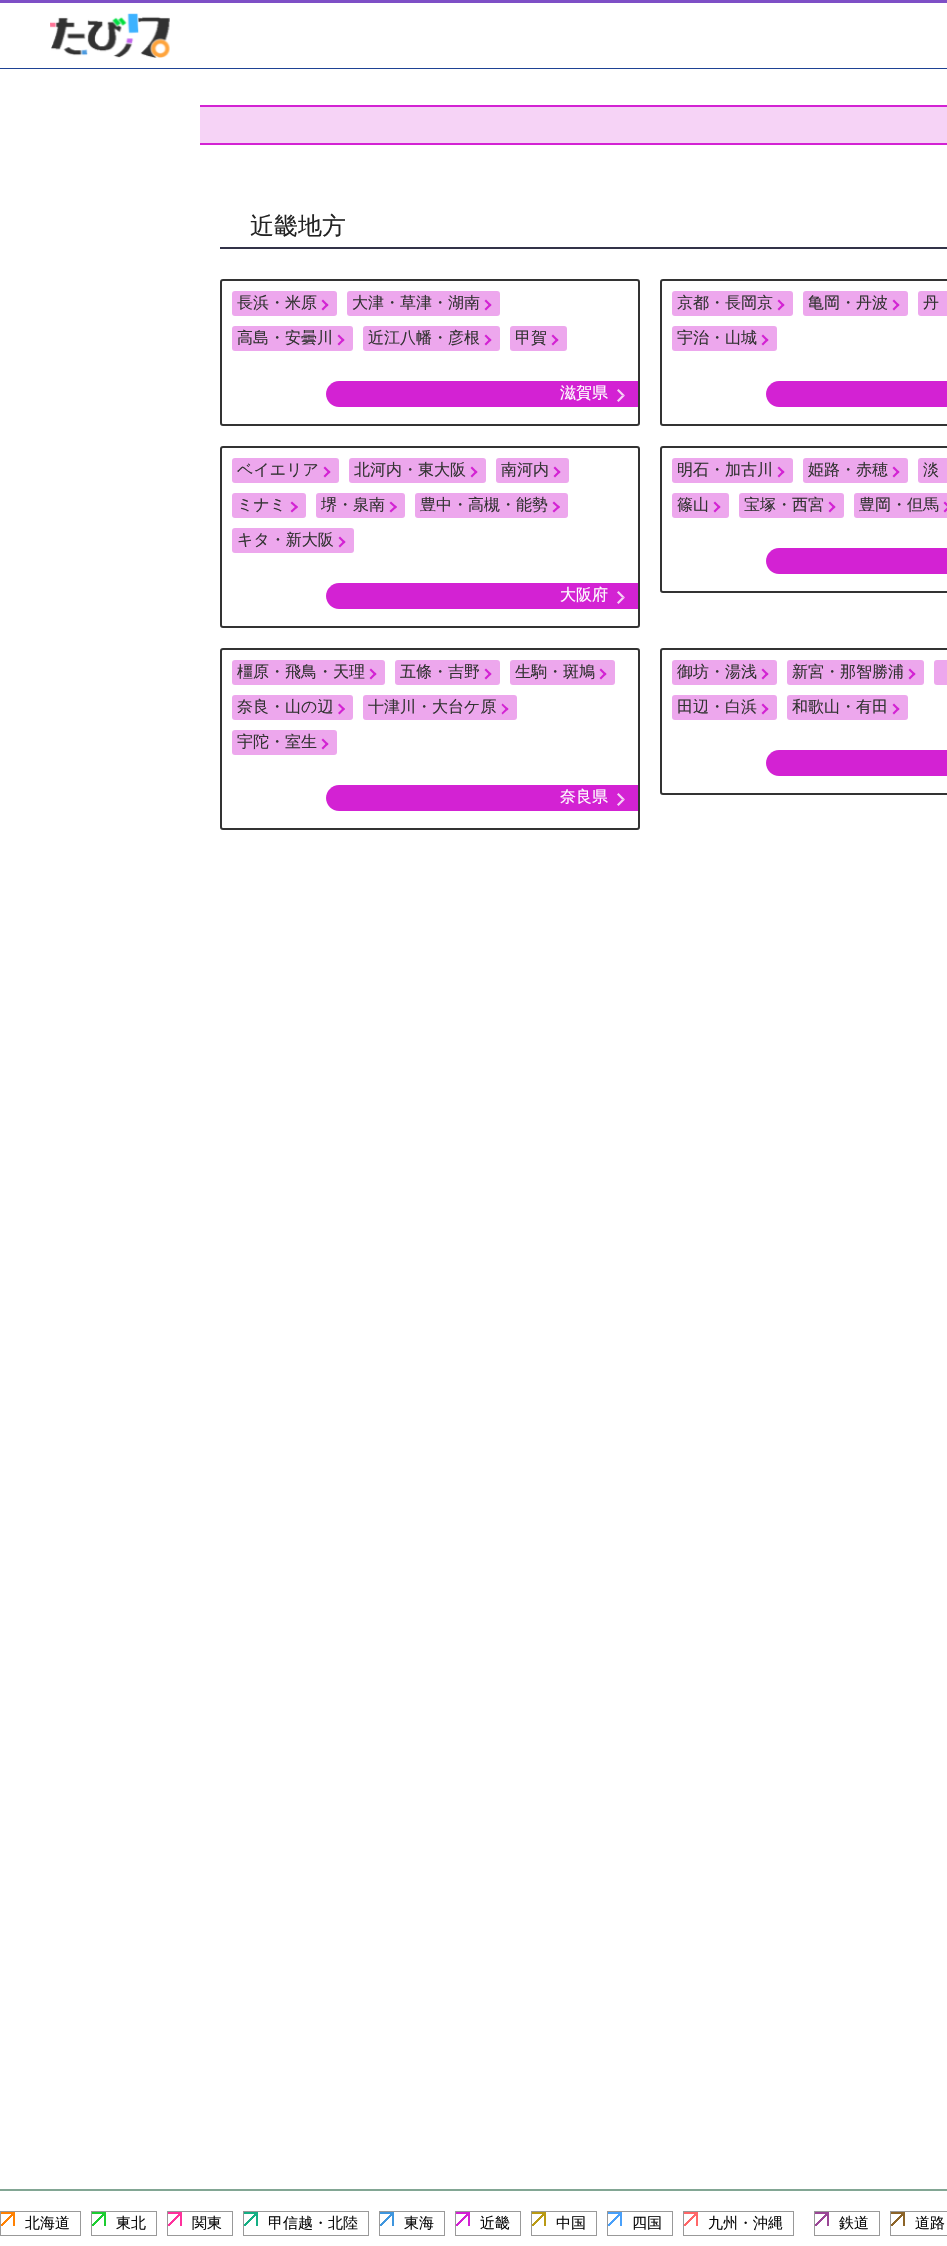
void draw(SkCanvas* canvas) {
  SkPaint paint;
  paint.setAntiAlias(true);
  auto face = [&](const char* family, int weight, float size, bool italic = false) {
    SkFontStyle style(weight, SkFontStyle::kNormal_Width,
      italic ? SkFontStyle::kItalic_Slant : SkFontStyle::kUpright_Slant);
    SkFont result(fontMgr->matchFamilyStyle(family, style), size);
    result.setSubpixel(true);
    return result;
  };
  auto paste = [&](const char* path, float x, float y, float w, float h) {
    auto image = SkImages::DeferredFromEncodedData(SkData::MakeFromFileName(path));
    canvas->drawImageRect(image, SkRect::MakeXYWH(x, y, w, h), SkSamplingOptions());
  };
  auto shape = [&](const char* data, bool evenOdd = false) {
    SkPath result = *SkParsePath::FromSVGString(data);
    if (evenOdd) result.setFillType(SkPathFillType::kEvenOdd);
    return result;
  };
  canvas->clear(0xffffffff);
  paint.setColor(0xff7e4fc6);
  canvas->drawRect(SkRect::MakeXYWH(0, 0, 947, 3), paint);
  paint.setColor(0xff1e4294);
  canvas->drawRect(SkRect::MakeXYWH(0, 68, 947, 1), paint);
  paste("img/1.png", 50, 13, 120, 45);
  {
    const struct { float x, y, w, h; SkColor color; } items[] = {
      {200, 107, 747, 36, 0xfff6d3f6},
      {200, 105, 747, 2, 0xffd322d3},
      {200, 143, 747, 2, 0xffd322d3},
      {220, 247, 727, 2, 0xff333348},
    };
    for (auto [x, y, w, h, color] : items) {
      paint.setColor(color);
      canvas->drawRect(SkRect::MakeXYWH(x, y, w, h), paint);
    }
  }
  paint.setStroke(true);
  paint.setStrokeWidth(2);
  paint.setColor(0xff333333);
  canvas->drawRoundRect(SkRect::MakeXYWH(221, 280, 418, 145), 2, 2, paint);
  paint.setStroke(false);
  paint.setColor(0xffeda7ed);
  canvas->drawRoundRect(SkRect::MakeXYWH(232, 291, 105, 25), 3, 3, paint);
  paint.setColor(0xffd322d3);
  canvas->drawPath(shape("M323 299.5L328.5 305L327 306.5L321.5 301Z"), paint);
  canvas->drawPath(shape("M327 303.5L328.5 305L323 310.5L321.5 309Z"), paint);
  paint.setColor(0xffeda7ed);
  canvas->drawRoundRect(SkRect::MakeXYWH(347, 291, 153, 25), 3, 3, paint);
  paint.setColor(0xffd322d3);
  canvas->drawPath(shape("M486 299.5L491.5 305L490 306.5L484.5 301Z"), paint);
  canvas->drawPath(shape("M490 303.5L491.5 305L486 310.5L484.5 309Z"), paint);
  paint.setColor(0xffeda7ed);
  canvas->drawRoundRect(SkRect::MakeXYWH(232, 326, 121, 25), 3, 3, paint);
  paint.setColor(0xffd322d3);
  canvas->drawPath(shape("M339 334.5L344.5 340L343 341.5L337.5 336Z"), paint);
  canvas->drawPath(shape("M343 338.5L344.5 340L339 345.5L337.5 344Z"), paint);
  paint.setColor(0xffeda7ed);
  canvas->drawRoundRect(SkRect::MakeXYWH(363, 326, 137, 25), 3, 3, paint);
  paint.setColor(0xffd322d3);
  canvas->drawPath(shape("M486 334.5L491.5 340L490 341.5L484.5 336Z"), paint);
  canvas->drawPath(shape("M490 338.5L491.5 340L486 345.5L484.5 344Z"), paint);
  paint.setColor(0xffeda7ed);
  canvas->drawRoundRect(SkRect::MakeXYWH(510, 326, 57, 25), 3, 3, paint);
  paint.setColor(0xffd322d3);
  canvas->drawPath(shape("M553 334.5L558.5 340L557 341.5L551.5 336Z"), paint);
  canvas->drawPath(shape("M557 338.5L558.5 340L553 345.5L551.5 344Z"), paint);
  canvas->drawPath(shape("M339 381H638V407H339C332 407 326 401 326 394C326 387 332 381 339 381Z"), paint);
  paint.setColor(0xfff6d3f6);
  canvas->drawPath(shape("M618.5 389L625 395.5H622L617 390.5Z"), paint);
  canvas->drawPath(shape("M625 395.5L618.5 402L617 400.5L622 395.5Z"), paint);
  paint.setStroke(true);
  paint.setColor(0xff333333);
  canvas->drawRoundRect(SkRect::MakeXYWH(661, 280, 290, 145), 2, 2, paint);
  paint.setStroke(false);
  paint.setColor(0xffeda7ed);
  canvas->drawRoundRect(SkRect::MakeXYWH(672, 291, 121, 25), 3, 3, paint);
  paint.setColor(0xffd322d3);
  canvas->drawPath(shape("M779 299.5L784.5 305L783 306.5L777.5 301Z"), paint);
  canvas->drawPath(shape("M783 303.5L784.5 305L779 310.5L777.5 309Z"), paint);
  paint.setColor(0xffeda7ed);
  canvas->drawRoundRect(SkRect::MakeXYWH(803, 291, 105, 25), 3, 3, paint);
  paint.setColor(0xffd322d3);
  canvas->drawPath(shape("M894 299.5L899.5 305L898 306.5L892.5 301Z"), paint);
  canvas->drawPath(shape("M898 303.5L899.5 305L894 310.5L892.5 309Z"), paint);
  paint.setColor(0xffeda7ed);
  canvas->drawRoundRect(SkRect::MakeXYWH(918, 291, 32, 25), 3, 3, paint);
  canvas->drawRoundRect(SkRect::MakeXYWH(672, 326, 105, 25), 3, 3, paint);
  paint.setColor(0xffd322d3);
  canvas->drawPath(shape("M763 334.5L768.5 340L767 341.5L761.5 336Z"), paint);
  canvas->drawPath(shape("M767 338.5L768.5 340L763 345.5L761.5 344Z"), paint);
  canvas->drawPath(shape("M779 381H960V407H779C772 407 766 401 766 394C766 387 772 381 779 381Z"), paint);
  paint.setStroke(true);
  paint.setColor(0xff333333);
  canvas->drawRoundRect(SkRect::MakeXYWH(221, 447, 418, 180), 2, 2, paint);
  paint.setStroke(false);
  paint.setColor(0xffeda7ed);
  canvas->drawRoundRect(SkRect::MakeXYWH(232, 458, 107, 25), 3, 3, paint);
  paint.setColor(0xffd322d3);
  canvas->drawPath(shape("M325 466.5L330.5 472L329 473.5L323.5 468Z"), paint);
  canvas->drawPath(shape("M329 470.5L330.5 472L325 477.5L323.5 476Z"), paint);
  paint.setColor(0xffeda7ed);
  canvas->drawRoundRect(SkRect::MakeXYWH(349, 458, 137, 25), 3, 3, paint);
  paint.setColor(0xffd322d3);
  canvas->drawPath(shape("M472 466.5L477.5 472L476 473.5L470.5 468Z"), paint);
  canvas->drawPath(shape("M476 470.5L477.5 472L472 477.5L470.5 476Z"), paint);
  paint.setColor(0xffeda7ed);
  canvas->drawRoundRect(SkRect::MakeXYWH(496, 458, 73, 25), 3, 3, paint);
  paint.setColor(0xffd322d3);
  canvas->drawPath(shape("M555 466.5L560.5 472L559 473.5L553.5 468Z"), paint);
  canvas->drawPath(shape("M559 470.5L560.5 472L555 477.5L553.5 476Z"), paint);
  paint.setColor(0xffeda7ed);
  canvas->drawRoundRect(SkRect::MakeXYWH(232, 493, 74, 25), 3, 3, paint);
  paint.setColor(0xffd322d3);
  canvas->drawPath(shape("M292 501.5L298 507L296.5 508.5L290.5 503Z"), paint);
  canvas->drawPath(shape("M296.5 505.5L298 507L292 512.5L290.5 511Z"), paint);
  paint.setColor(0xffeda7ed);
  canvas->drawRoundRect(SkRect::MakeXYWH(316, 493, 89, 25), 3, 3, paint);
  paint.setColor(0xffd322d3);
  canvas->drawPath(shape("M391 501.5L397 507L395.5 508.5L389.5 503Z"), paint);
  canvas->drawPath(shape("M395.5 505.5L397 507L391 512.5L389.5 511Z"), paint);
  paint.setColor(0xffeda7ed);
  canvas->drawRoundRect(SkRect::MakeXYWH(415, 493, 153, 25), 3, 3, paint);
  paint.setColor(0xffd322d3);
  canvas->drawPath(shape("M554 501.5L560 507L558.5 508.5L552.5 503Z"), paint);
  canvas->drawPath(shape("M558.5 505.5L560 507L554 512.5L552.5 511Z"), paint);
  paint.setColor(0xffeda7ed);
  canvas->drawRoundRect(SkRect::MakeXYWH(232, 528, 122, 25), 3, 3, paint);
  paint.setColor(0xffd322d3);
  canvas->drawPath(shape("M340 536.5L345.5 542L344 543.5L338.5 538Z"), paint);
  canvas->drawPath(shape("M344 540.5L345.5 542L340 547.5L338.5 546Z"), paint);
  canvas->drawPath(shape("M339 583H638V609H339C332 609 326 603 326 596C326 589 332 583 339 583Z"), paint);
  paint.setColor(0xfff6d3f6);
  canvas->drawPath(shape("M618.5 591L625 597.5H622L617 592.5Z"), paint);
  canvas->drawPath(shape("M625 597.5L618.5 604L617 602.5L622 597.5Z"), paint);
  paint.setStroke(true);
  paint.setColor(0xff333333);
  canvas->drawRoundRect(SkRect::MakeXYWH(661, 447, 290, 145), 2, 2, paint);
  paint.setStroke(false);
  paint.setColor(0xffeda7ed);
  canvas->drawRoundRect(SkRect::MakeXYWH(672, 458, 121, 25), 3, 3, paint);
  paint.setColor(0xffd322d3);
  canvas->drawPath(shape("M779 466.5L784.5 472L783 473.5L777.5 468Z"), paint);
  canvas->drawPath(shape("M783 470.5L784.5 472L779 477.5L777.5 476Z"), paint);
  paint.setColor(0xffeda7ed);
  canvas->drawRoundRect(SkRect::MakeXYWH(803, 458, 105, 25), 3, 3, paint);
  paint.setColor(0xffd322d3);
  canvas->drawPath(shape("M894 466.5L899.5 472L898 473.5L892.5 468Z"), paint);
  canvas->drawPath(shape("M898 470.5L899.5 472L894 477.5L892.5 476Z"), paint);
  paint.setColor(0xffeda7ed);
  canvas->drawRoundRect(SkRect::MakeXYWH(918, 458, 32, 25), 3, 3, paint);
  canvas->drawRoundRect(SkRect::MakeXYWH(672, 493, 57, 25), 3, 3, paint);
  paint.setColor(0xffd322d3);
  canvas->drawPath(shape("M715 501.5L720.5 507L719 508.5L713.5 503Z"), paint);
  canvas->drawPath(shape("M719 505.5L720.5 507L715 512.5L713.5 511Z"), paint);
  paint.setColor(0xffeda7ed);
  canvas->drawRoundRect(SkRect::MakeXYWH(739, 493, 105, 25), 3, 3, paint);
  paint.setColor(0xffd322d3);
  canvas->drawPath(shape("M830 501.5L835.5 507L834 508.5L828.5 503Z"), paint);
  canvas->drawPath(shape("M834 505.5L835.5 507L830 512.5L828.5 511Z"), paint);
  paint.setColor(0xffeda7ed);
  canvas->drawRoundRect(SkRect::MakeXYWH(854, 493, 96, 25), 3, 3, paint);
  paint.setColor(0xffd322d3);
  canvas->drawPath(shape("M945 501.5L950.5 507L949 508.5L943.5 503ZM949 505.5L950.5 507L945 512.5L943.5 511Z"), paint);
  canvas->drawPath(shape("M779 548H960V574H779C772 574 766 568 766 561C766 554 772 548 779 548Z"), paint);
  paint.setStroke(true);
  paint.setColor(0xff333333);
  canvas->drawRoundRect(SkRect::MakeXYWH(221, 649, 418, 180), 2, 2, paint);
  paint.setStroke(false);
  paint.setColor(0xffeda7ed);
  canvas->drawRoundRect(SkRect::MakeXYWH(232, 660, 153, 25), 3, 3, paint);
  paint.setColor(0xffd322d3);
  canvas->drawPath(shape("M371 668.5L376.5 674L375 675.5L369.5 670Z"), paint);
  canvas->drawPath(shape("M375 672.5L376.5 674L371 679.5L369.5 678Z"), paint);
  paint.setColor(0xffeda7ed);
  canvas->drawRoundRect(SkRect::MakeXYWH(395, 660, 105, 25), 3, 3, paint);
  paint.setColor(0xffd322d3);
  canvas->drawPath(shape("M486 668.5L491.5 674L490 675.5L484.5 670Z"), paint);
  canvas->drawPath(shape("M490 672.5L491.5 674L486 679.5L484.5 678Z"), paint);
  paint.setColor(0xffeda7ed);
  canvas->drawRoundRect(SkRect::MakeXYWH(510, 660, 105, 25), 3, 3, paint);
  paint.setColor(0xffd322d3);
  canvas->drawPath(shape("M601 668.5L606.5 674L605 675.5L599.5 670Z"), paint);
  canvas->drawPath(shape("M605 672.5L606.5 674L601 679.5L599.5 678Z"), paint);
  paint.setColor(0xffeda7ed);
  canvas->drawRoundRect(SkRect::MakeXYWH(232, 695, 121, 25), 3, 3, paint);
  paint.setColor(0xffd322d3);
  canvas->drawPath(shape("M339.5 703.5L345 709L343.5 710.5L338 705Z"), paint);
  canvas->drawPath(shape("M343.5 707.5L345 709L339.5 714.5L338 713Z"), paint);
  paint.setColor(0xffeda7ed);
  canvas->drawRoundRect(SkRect::MakeXYWH(363, 695, 154, 25), 3, 3, paint);
  paint.setColor(0xffd322d3);
  canvas->drawPath(shape("M502.5 703.5L508.5 709L507 710.5L501.5 705Z"), paint);
  canvas->drawPath(shape("M507 707.5L508.5 709L502.5 714.5L501.5 713Z"), paint);
  paint.setColor(0xffeda7ed);
  canvas->drawRoundRect(SkRect::MakeXYWH(232, 730, 105, 25), 3, 3, paint);
  paint.setColor(0xffd322d3);
  canvas->drawPath(shape("M323 738.5L328.5 744L327 745.5L321.5 740Z"), paint);
  canvas->drawPath(shape("M327 742.5L328.5 744L323 749.5L321.5 748Z"), paint);
  canvas->drawPath(shape("M339 785H638V811H339C332 811 326 805 326 798C326 791 332 785 339 785Z"), paint);
  paint.setColor(0xfff6d3f6);
  canvas->drawPath(shape("M618.5 793L625 799.5H622L617 794.5Z"), paint);
  canvas->drawPath(shape("M625 799.5L618.5 806L617 804.5L622 799.5Z"), paint);
  paint.setStroke(true);
  paint.setColor(0xff333333);
  canvas->drawRoundRect(SkRect::MakeXYWH(661, 649, 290, 145), 2, 2, paint);
  paint.setStroke(false);
  paint.setColor(0xffeda7ed);
  canvas->drawRoundRect(SkRect::MakeXYWH(672, 660, 105, 25), 3, 3, paint);
  paint.setColor(0xffd322d3);
  canvas->drawPath(shape("M763 668.5L768.5 674L767 675.5L761.5 670Z"), paint);
  canvas->drawPath(shape("M767 672.5L768.5 674L763 679.5L761.5 678Z"), paint);
  paint.setColor(0xffeda7ed);
  canvas->drawRoundRect(SkRect::MakeXYWH(787, 660, 137, 25), 3, 3, paint);
  paint.setColor(0xffd322d3);
  canvas->drawPath(shape("M910 668.5L915.5 674L914 675.5L908.5 670Z"), paint);
  canvas->drawPath(shape("M914 672.5L915.5 674L910 679.5L908.5 678Z"), paint);
  paint.setColor(0xffeda7ed);
  canvas->drawRoundRect(SkRect::MakeXYWH(934, 660, 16, 25), 3, 3, paint);
  canvas->drawRoundRect(SkRect::MakeXYWH(672, 695, 105, 25), 3, 3, paint);
  paint.setColor(0xffd322d3);
  canvas->drawPath(shape("M763 703.5L768.5 709L767 710.5L761.5 705Z"), paint);
  canvas->drawPath(shape("M767 707.5L768.5 709L763 714.5L761.5 713Z"), paint);
  paint.setColor(0xffeda7ed);
  canvas->drawRoundRect(SkRect::MakeXYWH(787, 695, 121, 25), 3, 3, paint);
  paint.setColor(0xffd322d3);
  canvas->drawPath(shape("M894 703.5L899.5 709L898 710.5L892.5 705Z"), paint);
  canvas->drawPath(shape("M898 707.5L899.5 709L894 714.5L892.5 713Z"), paint);
  canvas->drawPath(shape("M779 750H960V776H779C772 776 766 770 766 763C766 756 772 750 779 750Z"), paint);
  paint.setColor(0xff82a694);
  canvas->drawRect(SkRect::MakeXYWH(0, 2189, 947, 2), paint);
  paint.setStroke(true);
  paint.setStrokeWidth(1);
  paint.setColor(0xff999999);
  canvas->drawRect(SkRect::MakeXYWH(0.5f, 2211.5f, 80, 24), paint);
  paint.setStroke(false);
  {
    const SkColor colors[] = {0xffffffff, 0xffffffff, 0xffff8203, 0xffff8203, 0xffffffff, 0xffffffff};
    const float stops[] = {0, 0.45f, 0.45f, 0.55f, 0.55f, 1};
    const SkPoint ends[] = {{1, 2212}, {15, 2226}};
    paint.setShader(SkGradientShader::MakeLinear(ends, colors, stops, 6, SkTileMode::kClamp));
    paint.setAlpha(255);
  }
  canvas->drawRect(SkRect::MakeXYWH(1, 2214, 12, 12), paint);
  {
    const SkColor colors[] = {0x00ffffff, 0x00ff8203, 0xffff8203, 0xffff8203};
    const float stops[] = {0, 0.86f, 0.86f, 1};
    const SkPoint ends[] = {{1, 2219}, {15, 2219}};
    paint.setShader(SkGradientShader::MakeLinear(ends, colors, stops, 4, SkTileMode::kClamp));
    paint.setAlpha(255);
  }
  canvas->drawRect(SkRect::MakeXYWH(13, 2214, 2, 12), paint);
  {
    const SkColor colors[] = {0xffff8203, 0xffff8203, 0x00ff8203, 0x00ffffff};
    const float stops[] = {0, 0.14f, 0.14f, 1};
    const SkPoint ends[] = {{8, 2212}, {8, 2226}};
    paint.setShader(SkGradientShader::MakeLinear(ends, colors, stops, 4, SkTileMode::kClamp));
    paint.setAlpha(255);
  }
  canvas->drawRect(SkRect::MakeXYWH(1, 2212, 14, 2), paint);
  paint.setStroke(true);
  paint.setShader(nullptr);
  paint.setColor(0xff999999);
  canvas->drawRect(SkRect::MakeXYWH(91.5f, 2211.5f, 65, 24), paint);
  paint.setStroke(false);
  {
    const SkColor colors[] = {0xffffffff, 0xffffffff, 0xff1ccd31, 0xff1ccd31, 0xffffffff, 0xffffffff};
    const float stops[] = {0, 0.45f, 0.45f, 0.55f, 0.55f, 1};
    const SkPoint ends[] = {{92, 2212}, {106, 2226}};
    paint.setShader(SkGradientShader::MakeLinear(ends, colors, stops, 6, SkTileMode::kClamp));
    paint.setAlpha(255);
  }
  canvas->drawRect(SkRect::MakeXYWH(92, 2214, 12, 12), paint);
  {
    const SkColor colors[] = {0x00ffffff, 0x001ccd31, 0xff1ccd31, 0xff1ccd31};
    const float stops[] = {0, 0.86f, 0.86f, 1};
    const SkPoint ends[] = {{92, 2219}, {106, 2219}};
    paint.setShader(SkGradientShader::MakeLinear(ends, colors, stops, 4, SkTileMode::kClamp));
    paint.setAlpha(255);
  }
  canvas->drawRect(SkRect::MakeXYWH(104, 2214, 2, 12), paint);
  {
    const SkColor colors[] = {0xff1ccd31, 0xff1ccd31, 0x001ccd31, 0x00ffffff};
    const float stops[] = {0, 0.14f, 0.14f, 1};
    const SkPoint ends[] = {{99, 2212}, {99, 2226}};
    paint.setShader(SkGradientShader::MakeLinear(ends, colors, stops, 4, SkTileMode::kClamp));
    paint.setAlpha(255);
  }
  canvas->drawRect(SkRect::MakeXYWH(92, 2212, 14, 2), paint);
  paint.setStroke(true);
  paint.setShader(nullptr);
  paint.setColor(0xff999999);
  canvas->drawRect(SkRect::MakeXYWH(167.5f, 2211.5f, 65, 24), paint);
  paint.setStroke(false);
  {
    const SkColor colors[] = {0xffffffff, 0xffffffff, 0xffff319c, 0xffff319c, 0xffffffff, 0xffffffff};
    const float stops[] = {0, 0.45f, 0.45f, 0.55f, 0.55f, 1};
    const SkPoint ends[] = {{168, 2212}, {182, 2226}};
    paint.setShader(SkGradientShader::MakeLinear(ends, colors, stops, 6, SkTileMode::kClamp));
    paint.setAlpha(255);
  }
  canvas->drawRect(SkRect::MakeXYWH(168, 2214, 12, 12), paint);
  {
    const SkColor colors[] = {0x00ffffff, 0x00ff319c, 0xffff319c, 0xffff319c};
    const float stops[] = {0, 0.86f, 0.86f, 1};
    const SkPoint ends[] = {{168, 2219}, {182, 2219}};
    paint.setShader(SkGradientShader::MakeLinear(ends, colors, stops, 4, SkTileMode::kClamp));
    paint.setAlpha(255);
  }
  canvas->drawRect(SkRect::MakeXYWH(180, 2214, 2, 12), paint);
  {
    const SkColor colors[] = {0xffff319c, 0xffff319c, 0x00ff319c, 0x00ffffff};
    const float stops[] = {0, 0.14f, 0.14f, 1};
    const SkPoint ends[] = {{175, 2212}, {175, 2226}};
    paint.setShader(SkGradientShader::MakeLinear(ends, colors, stops, 4, SkTileMode::kClamp));
    paint.setAlpha(255);
  }
  canvas->drawRect(SkRect::MakeXYWH(168, 2212, 14, 2), paint);
  paint.setStroke(true);
  paint.setShader(nullptr);
  paint.setColor(0xff999999);
  canvas->drawRect(SkRect::MakeXYWH(243.5f, 2211.5f, 125, 24), paint);
  paint.setStroke(false);
  {
    const SkColor colors[] = {0xffffffff, 0xffffffff, 0xff14af84, 0xff14af84, 0xffffffff, 0xffffffff};
    const float stops[] = {0, 0.45f, 0.45f, 0.55f, 0.55f, 1};
    const SkPoint ends[] = {{244, 2212}, {258, 2226}};
    paint.setShader(SkGradientShader::MakeLinear(ends, colors, stops, 6, SkTileMode::kClamp));
    paint.setAlpha(255);
  }
  canvas->drawRect(SkRect::MakeXYWH(244, 2214, 12, 12), paint);
  {
    const SkColor colors[] = {0x00ffffff, 0x0014af84, 0xff14af84, 0xff14af84};
    const float stops[] = {0, 0.86f, 0.86f, 1};
    const SkPoint ends[] = {{244, 2219}, {258, 2219}};
    paint.setShader(SkGradientShader::MakeLinear(ends, colors, stops, 4, SkTileMode::kClamp));
    paint.setAlpha(255);
  }
  canvas->drawRect(SkRect::MakeXYWH(256, 2214, 2, 12), paint);
  {
    const SkColor colors[] = {0xff14af84, 0xff14af84, 0x0014af84, 0x00ffffff};
    const float stops[] = {0, 0.14f, 0.14f, 1};
    const SkPoint ends[] = {{251, 2212}, {251, 2226}};
    paint.setShader(SkGradientShader::MakeLinear(ends, colors, stops, 4, SkTileMode::kClamp));
    paint.setAlpha(255);
  }
  canvas->drawRect(SkRect::MakeXYWH(244, 2212, 14, 2), paint);
  paint.setStroke(true);
  paint.setShader(nullptr);
  paint.setColor(0xff999999);
  canvas->drawRect(SkRect::MakeXYWH(379.5f, 2211.5f, 65, 24), paint);
  paint.setStroke(false);
  {
    const SkColor colors[] = {0xffffffff, 0xffffffff, 0xff3f96de, 0xff3f96de, 0xffffffff, 0xffffffff};
    const float stops[] = {0, 0.45f, 0.45f, 0.55f, 0.55f, 1};
    const SkPoint ends[] = {{380, 2212}, {394, 2226}};
    paint.setShader(SkGradientShader::MakeLinear(ends, colors, stops, 6, SkTileMode::kClamp));
    paint.setAlpha(255);
  }
  canvas->drawRect(SkRect::MakeXYWH(380, 2214, 12, 12), paint);
  {
    const SkColor colors[] = {0x00ffffff, 0x003f96de, 0xff3f96de, 0xff3f96de};
    const float stops[] = {0, 0.86f, 0.86f, 1};
    const SkPoint ends[] = {{380, 2219}, {394, 2219}};
    paint.setShader(SkGradientShader::MakeLinear(ends, colors, stops, 4, SkTileMode::kClamp));
    paint.setAlpha(255);
  }
  canvas->drawRect(SkRect::MakeXYWH(392, 2214, 2, 12), paint);
  {
    const SkColor colors[] = {0xff3f96de, 0xff3f96de, 0x003f96de, 0x00ffffff};
    const float stops[] = {0, 0.14f, 0.14f, 1};
    const SkPoint ends[] = {{387, 2212}, {387, 2226}};
    paint.setShader(SkGradientShader::MakeLinear(ends, colors, stops, 4, SkTileMode::kClamp));
    paint.setAlpha(255);
  }
  canvas->drawRect(SkRect::MakeXYWH(380, 2212, 14, 2), paint);
  paint.setStroke(true);
  paint.setShader(nullptr);
  paint.setColor(0xff999999);
  canvas->drawRect(SkRect::MakeXYWH(455.5f, 2211.5f, 65, 24), paint);
  paint.setStroke(false);
  {
    const SkColor colors[] = {0xffffffff, 0xffffffff, 0xffd322d3, 0xffd322d3, 0xffffffff, 0xffffffff};
    const float stops[] = {0, 0.45f, 0.45f, 0.55f, 0.55f, 1};
    const SkPoint ends[] = {{456, 2212}, {470, 2226}};
    paint.setShader(SkGradientShader::MakeLinear(ends, colors, stops, 6, SkTileMode::kClamp));
    paint.setAlpha(255);
  }
  canvas->drawRect(SkRect::MakeXYWH(456, 2214, 12, 12), paint);
  {
    const SkColor colors[] = {0x00ffffff, 0x00d322d3, 0xffd322d3, 0xffd322d3};
    const float stops[] = {0, 0.86f, 0.86f, 1};
    const SkPoint ends[] = {{456, 2219}, {470, 2219}};
    paint.setShader(SkGradientShader::MakeLinear(ends, colors, stops, 4, SkTileMode::kClamp));
    paint.setAlpha(255);
  }
  canvas->drawRect(SkRect::MakeXYWH(468, 2214, 2, 12), paint);
  {
    const SkColor colors[] = {0xffd322d3, 0xffd322d3, 0x00d322d3, 0x00ffffff};
    const float stops[] = {0, 0.14f, 0.14f, 1};
    const SkPoint ends[] = {{463, 2212}, {463, 2226}};
    paint.setShader(SkGradientShader::MakeLinear(ends, colors, stops, 4, SkTileMode::kClamp));
    paint.setAlpha(255);
  }
  canvas->drawRect(SkRect::MakeXYWH(456, 2212, 14, 2), paint);
  paint.setStroke(true);
  paint.setShader(nullptr);
  paint.setColor(0xff999999);
  canvas->drawRect(SkRect::MakeXYWH(531.5f, 2211.5f, 65, 24), paint);
  paint.setStroke(false);
  {
    const SkColor colors[] = {0xffffffff, 0xffffffff, 0xffb99a14, 0xffb99a14, 0xffffffff, 0xffffffff};
    const float stops[] = {0, 0.45f, 0.45f, 0.55f, 0.55f, 1};
    const SkPoint ends[] = {{532, 2212}, {546, 2226}};
    paint.setShader(SkGradientShader::MakeLinear(ends, colors, stops, 6, SkTileMode::kClamp));
    paint.setAlpha(255);
  }
  canvas->drawRect(SkRect::MakeXYWH(532, 2214, 12, 12), paint);
  {
    const SkColor colors[] = {0x00ffffff, 0x00b99a14, 0xffb99a14, 0xffb99a14};
    const float stops[] = {0, 0.86f, 0.86f, 1};
    const SkPoint ends[] = {{532, 2219}, {546, 2219}};
    paint.setShader(SkGradientShader::MakeLinear(ends, colors, stops, 4, SkTileMode::kClamp));
    paint.setAlpha(255);
  }
  canvas->drawRect(SkRect::MakeXYWH(544, 2214, 2, 12), paint);
  {
    const SkColor colors[] = {0xffb99a14, 0xffb99a14, 0x00b99a14, 0x00ffffff};
    const float stops[] = {0, 0.14f, 0.14f, 1};
    const SkPoint ends[] = {{539, 2212}, {539, 2226}};
    paint.setShader(SkGradientShader::MakeLinear(ends, colors, stops, 4, SkTileMode::kClamp));
    paint.setAlpha(255);
  }
  canvas->drawRect(SkRect::MakeXYWH(532, 2212, 14, 2), paint);
  paint.setStroke(true);
  paint.setShader(nullptr);
  paint.setColor(0xff999999);
  canvas->drawRect(SkRect::MakeXYWH(607.5f, 2211.5f, 65, 24), paint);
  paint.setStroke(false);
  {
    const SkColor colors[] = {0xffffffff, 0xffffffff, 0xff49a0fa, 0xff49a0fa, 0xffffffff, 0xffffffff};
    const float stops[] = {0, 0.45f, 0.45f, 0.55f, 0.55f, 1};
    const SkPoint ends[] = {{608, 2212}, {622, 2226}};
    paint.setShader(SkGradientShader::MakeLinear(ends, colors, stops, 6, SkTileMode::kClamp));
    paint.setAlpha(255);
  }
  canvas->drawRect(SkRect::MakeXYWH(608, 2214, 12, 12), paint);
  {
    const SkColor colors[] = {0x00ffffff, 0x0049a0fa, 0xff49a0fa, 0xff49a0fa};
    const float stops[] = {0, 0.86f, 0.86f, 1};
    const SkPoint ends[] = {{608, 2219}, {622, 2219}};
    paint.setShader(SkGradientShader::MakeLinear(ends, colors, stops, 4, SkTileMode::kClamp));
    paint.setAlpha(255);
  }
  canvas->drawRect(SkRect::MakeXYWH(620, 2214, 2, 12), paint);
  {
    const SkColor colors[] = {0xff49a0fa, 0xff49a0fa, 0x0049a0fa, 0x00ffffff};
    const float stops[] = {0, 0.14f, 0.14f, 1};
    const SkPoint ends[] = {{615, 2212}, {615, 2226}};
    paint.setShader(SkGradientShader::MakeLinear(ends, colors, stops, 4, SkTileMode::kClamp));
    paint.setAlpha(255);
  }
  canvas->drawRect(SkRect::MakeXYWH(608, 2212, 14, 2), paint);
  paint.setStroke(true);
  paint.setShader(nullptr);
  paint.setColor(0xff999999);
  canvas->drawRect(SkRect::MakeXYWH(683.5f, 2211.5f, 110, 24), paint);
  paint.setStroke(false);
  {
    const SkColor colors[] = {0xffffffff, 0xffffffff, 0xffff6768, 0xffff6768, 0xffffffff, 0xffffffff};
    const float stops[] = {0, 0.45f, 0.45f, 0.55f, 0.55f, 1};
    const SkPoint ends[] = {{684, 2212}, {698, 2226}};
    paint.setShader(SkGradientShader::MakeLinear(ends, colors, stops, 6, SkTileMode::kClamp));
    paint.setAlpha(255);
  }
  canvas->drawRect(SkRect::MakeXYWH(684, 2214, 12, 12), paint);
  {
    const SkColor colors[] = {0x00ffffff, 0x00ff6768, 0xffff6768, 0xffff6768};
    const float stops[] = {0, 0.86f, 0.86f, 1};
    const SkPoint ends[] = {{684, 2219}, {698, 2219}};
    paint.setShader(SkGradientShader::MakeLinear(ends, colors, stops, 4, SkTileMode::kClamp));
    paint.setAlpha(255);
  }
  canvas->drawRect(SkRect::MakeXYWH(696, 2214, 2, 12), paint);
  {
    const SkColor colors[] = {0xffff6768, 0xffff6768, 0x00ff6768, 0x00ffffff};
    const float stops[] = {0, 0.14f, 0.14f, 1};
    const SkPoint ends[] = {{691, 2212}, {691, 2226}};
    paint.setShader(SkGradientShader::MakeLinear(ends, colors, stops, 4, SkTileMode::kClamp));
    paint.setAlpha(255);
  }
  canvas->drawRect(SkRect::MakeXYWH(684, 2212, 14, 2), paint);
  paint.setStroke(true);
  paint.setShader(nullptr);
  paint.setColor(0xff999999);
  canvas->drawRect(SkRect::MakeXYWH(814.5f, 2211.5f, 65, 24), paint);
  paint.setStroke(false);
  {
    const SkColor colors[] = {0xffffffff, 0xffffffff, 0xff9a4696, 0xff9a4696, 0xffffffff, 0xffffffff};
    const float stops[] = {0, 0.45f, 0.45f, 0.55f, 0.55f, 1};
    const SkPoint ends[] = {{815, 2212}, {829, 2226}};
    paint.setShader(SkGradientShader::MakeLinear(ends, colors, stops, 6, SkTileMode::kClamp));
    paint.setAlpha(255);
  }
  canvas->drawRect(SkRect::MakeXYWH(815, 2214, 12, 12), paint);
  {
    const SkColor colors[] = {0x00ffffff, 0x009a4696, 0xff9a4696, 0xff9a4696};
    const float stops[] = {0, 0.86f, 0.86f, 1};
    const SkPoint ends[] = {{815, 2219}, {829, 2219}};
    paint.setShader(SkGradientShader::MakeLinear(ends, colors, stops, 4, SkTileMode::kClamp));
    paint.setAlpha(255);
  }
  canvas->drawRect(SkRect::MakeXYWH(827, 2214, 2, 12), paint);
  {
    const SkColor colors[] = {0xff9a4696, 0xff9a4696, 0x009a4696, 0x00ffffff};
    const float stops[] = {0, 0.14f, 0.14f, 1};
    const SkPoint ends[] = {{822, 2212}, {822, 2226}};
    paint.setShader(SkGradientShader::MakeLinear(ends, colors, stops, 4, SkTileMode::kClamp));
    paint.setAlpha(255);
  }
  canvas->drawRect(SkRect::MakeXYWH(815, 2212, 14, 2), paint);
  paint.setStroke(true);
  paint.setShader(nullptr);
  paint.setColor(0xff999999);
  canvas->drawRect(SkRect::MakeXYWH(890.5f, 2211.5f, 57, 24), paint);
  paint.setStroke(false);
  {
    const SkColor colors[] = {0xffffffff, 0xffffffff, 0xff8c6428, 0xff8c6428, 0xffffffff, 0xffffffff};
    const float stops[] = {0, 0.45f, 0.45f, 0.55f, 0.55f, 1};
    const SkPoint ends[] = {{891, 2212}, {905, 2226}};
    paint.setShader(SkGradientShader::MakeLinear(ends, colors, stops, 6, SkTileMode::kClamp));
    paint.setAlpha(255);
  }
  canvas->drawRect(SkRect::MakeXYWH(891, 2214, 12, 12), paint);
  {
    const SkColor colors[] = {0x00ffffff, 0x008c6428, 0xff8c6428, 0xff8c6428};
    const float stops[] = {0, 0.86f, 0.86f, 1};
    const SkPoint ends[] = {{891, 2219}, {905, 2219}};
    paint.setShader(SkGradientShader::MakeLinear(ends, colors, stops, 4, SkTileMode::kClamp));
    paint.setAlpha(255);
  }
  canvas->drawRect(SkRect::MakeXYWH(903, 2214, 2, 12), paint);
  {
    const SkColor colors[] = {0xff8c6428, 0xff8c6428, 0x008c6428, 0x00ffffff};
    const float stops[] = {0, 0.14f, 0.14f, 1};
    const SkPoint ends[] = {{898, 2212}, {898, 2226}};
    paint.setShader(SkGradientShader::MakeLinear(ends, colors, stops, 4, SkTileMode::kClamp));
    paint.setAlpha(255);
  }
  canvas->drawRect(SkRect::MakeXYWH(891, 2212, 14, 2), paint);
  auto f0 = face("WenQuanYi Zen Hei", 500, 24);
  paint.setShader(nullptr);
  paint.setColor(0xff232323);
  canvas->drawString("近畿地方", 250, 234, f0, paint);
  auto f1 = face("WenQuanYi Zen Hei", 500, 16);
  paint.setColor(0xff333333);
  {
    const struct { const char* s; float x, y; } items[] = {
      {"長浜・米原", 237, 308},
      {"大津・草津・湖南", 352, 308},
      {"高島・安曇川", 237, 343},
      {"近江八幡・彦根", 368, 343},
      {"甲賀", 515, 343},
    };
    for (auto [s, x, y] : items) {
      canvas->drawString(s, x, y, f1, paint);
    }
  }
  paint.setColor(0xffffffff);
  canvas->drawString("滋賀県", 560, 398, f1, paint);
  paint.setColor(0xff333333);
  {
    const struct { const char* s; float x, y; } items[] = {
      {"京都・長岡京", 677, 308},
      {"亀岡・丹波", 808, 308},
      {"丹", 923, 308},
      {"宇治・山城", 677, 343},
      {"ベイエリア", 237, 475},
      {"北河内・東大阪", 354, 475},
      {"南河内", 501, 475},
      {"ミナミ", 237, 510},
      {"堺・泉南", 321, 510},
      {"豊中・高槻・能勢", 420, 510},
      {"キタ・新大阪", 237, 545},
    };
    for (auto [s, x, y] : items) {
      canvas->drawString(s, x, y, f1, paint);
    }
  }
  paint.setColor(0xffffffff);
  canvas->drawString("大阪府", 560, 600, f1, paint);
  paint.setColor(0xff333333);
  {
    const struct { const char* s; float x, y; } items[] = {
      {"明石・加古川", 677, 475},
      {"姫路・赤穂", 808, 475},
      {"淡", 923, 475},
      {"篠山", 677, 510},
      {"宝塚・西宮", 744, 510},
      {"豊岡・但馬", 859, 510},
      {"橿原・飛鳥・天理", 237, 677},
      {"五條・吉野", 400, 677},
      {"生駒・斑鳩", 515, 677},
      {"奈良・山の辺", 237, 712},
      {"十津川・大台ケ原", 368, 712},
      {"宇陀・室生", 237, 747},
    };
    for (auto [s, x, y] : items) {
      canvas->drawString(s, x, y, f1, paint);
    }
  }
  paint.setColor(0xffffffff);
  canvas->drawString("奈良県", 560, 802, f1, paint);
  paint.setColor(0xff333333);
  {
    const struct { const char* s; float x, y; } items[] = {
      {"御坊・湯浅", 677, 677},
      {"新宮・那智勝浦", 792, 677},
      {"田辺・白浜", 677, 712},
      {"和歌山・有田", 792, 712},
    };
    for (auto [s, x, y] : items) {
      canvas->drawString(s, x, y, f1, paint);
    }
  }
  auto f2 = face("WenQuanYi Zen Hei", 500, 15);
  paint.setColor(0xff0a0a0a);
  {
    const struct { const char* s; float x, y; } items[] = {
      {"北海道", 25, 2228},
      {"東北", 116, 2228},
      {"関東", 192, 2228},
      {"甲信越・北陸", 268, 2228},
      {"東海", 404, 2228},
      {"近畿", 480, 2228},
      {"中国", 556, 2228},
      {"四国", 632, 2228},
      {"九州・沖縄", 708, 2228},
      {"鉄道", 839, 2228},
      {"道路", 915, 2228},
    };
    for (auto [s, x, y] : items) {
      canvas->drawString(s, x, y, f2, paint);
    }
  }
}
